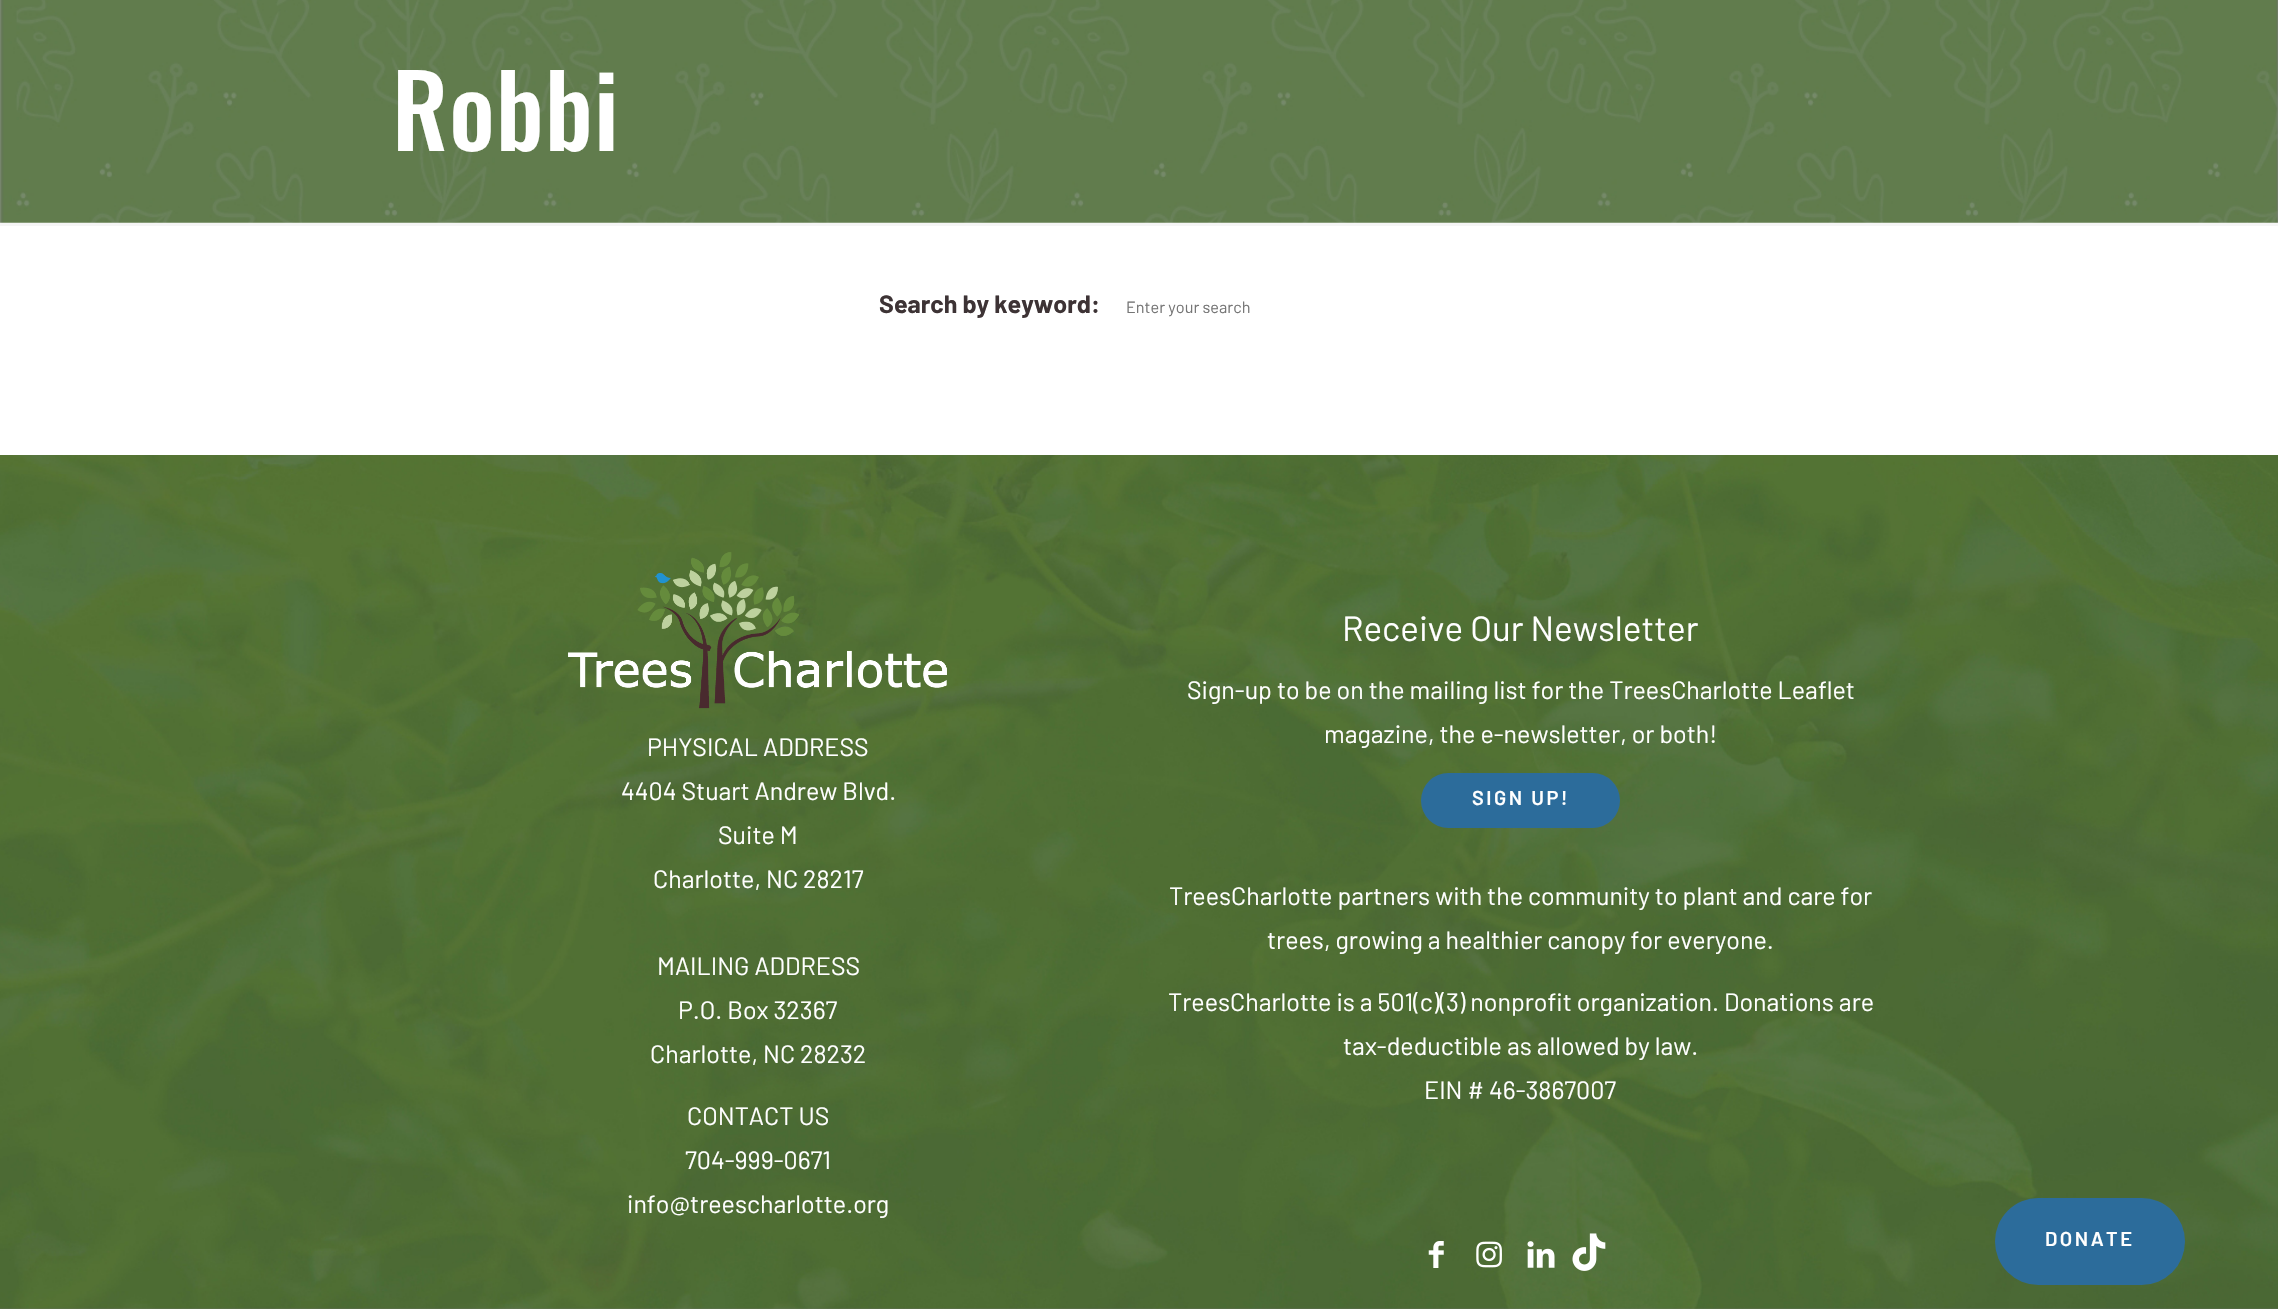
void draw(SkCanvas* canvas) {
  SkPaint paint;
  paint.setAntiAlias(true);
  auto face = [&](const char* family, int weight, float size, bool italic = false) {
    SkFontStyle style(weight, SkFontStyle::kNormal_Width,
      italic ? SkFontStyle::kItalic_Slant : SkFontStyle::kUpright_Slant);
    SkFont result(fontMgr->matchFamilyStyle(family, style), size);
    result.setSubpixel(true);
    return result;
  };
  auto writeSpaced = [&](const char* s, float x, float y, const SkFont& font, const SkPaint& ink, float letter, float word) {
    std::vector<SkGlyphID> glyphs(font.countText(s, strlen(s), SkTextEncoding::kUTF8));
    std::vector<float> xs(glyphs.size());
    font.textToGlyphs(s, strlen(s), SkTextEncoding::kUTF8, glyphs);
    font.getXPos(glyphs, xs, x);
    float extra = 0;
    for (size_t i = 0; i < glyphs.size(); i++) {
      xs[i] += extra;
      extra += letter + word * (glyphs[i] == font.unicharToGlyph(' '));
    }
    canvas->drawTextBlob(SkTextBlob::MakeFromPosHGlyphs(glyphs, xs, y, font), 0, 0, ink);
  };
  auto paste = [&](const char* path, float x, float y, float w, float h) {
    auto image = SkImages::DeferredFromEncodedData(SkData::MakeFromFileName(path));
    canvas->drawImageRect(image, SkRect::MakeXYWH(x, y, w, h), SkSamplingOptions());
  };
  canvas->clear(0xffffffff);
  paste("img/1.png", 0, 0, 2278, 223);
  paint.setColor(0xfff5f5f5);
  canvas->drawRect(SkRect::MakeXYWH(0, 223, 2278, 3), paint);
  paste("img/2.png", 0, 455, 2278, 854);
  paste("img/3.png", 568, 552, 379, 157);
  paint.setColor(0xff2c6c9b);
  canvas->drawRoundRect(SkRect::MakeXYWH(1421, 773, 199, 55), 27.5f, 27.5f, paint);
  paste("img/4.png", 1428, 1241, 16, 27);
  paste("img/5.png", 1476, 1241, 26, 27);
  paste("img/6.png", 1527, 1241, 28, 27);
  paste("img/7.png", 1572, 1233, 34, 38);
  canvas->drawRoundRect(SkRect::MakeXYWH(1995, 1198, 190, 87), 43.5f, 43.5f, paint);
  auto f0 = face("Oswald", 500, 100);
  paint.setColor(0xffffffff);
  writeSpaced("Robbi", 392, 151, f0, paint, 1.25f, 0);
  auto f1 = face("Barlow", 700, 25);
  paint.setColor(0xff3d3335);
  canvas->drawString("Search by keyword:", 879, 313, f1, paint);
  auto f2 = face("Barlow", 400, 16.25f);
  paint.setColor(0xff757575);
  canvas->drawString("Enter your search", 1126, 313, f2, paint);
  auto f3 = face("Barlow", 400, 25);
  paint.setColor(0xffffffff);
  {
    const struct { const char* s; float x, y; } items[] = {
      {"PHYSICAL ADDRESS", 647, 756},
      {"4404 Stuart Andrew Blvd.", 621, 800},
      {"Suite M", 718, 844},
      {"Charlotte, NC 28217", 653, 888},
      {"MAILING ADDRESS", 657, 975},
      {"P.O. Box 32367", 678, 1019},
      {"Charlotte, NC 28232", 650, 1063},
      {"CONTACT US", 687, 1125},
      {"704-999-0671", 685, 1169},
      {"info@treescharlotte.org", 627, 1213},
    };
    for (auto [s, x, y] : items) {
      canvas->drawString(s, x, y, f3, paint);
    }
  }
  auto f4 = face("Barlow", 400, 35);
  canvas->drawString("Receive Our Newsletter", 1342, 641, f4, paint);
  canvas->drawString("Sign-up to be on the mailing list for the TreesCharlotte Leaflet", 1187, 699, f3, paint);
  canvas->drawString("magazine, the e-newsletter, or both!", 1324, 743, f3, paint);
  auto f5 = face("Barlow", 600, 20);
  writeSpaced("SIGN UP!", 1472, 805, f5, paint, 2.5f, 0);
  {
    const struct { const char* s; float x, y; } items[] = {
      {"TreesCharlotte partners with the community to plant and care for", 1169, 905},
      {"trees, growing a healthier canopy for everyone.", 1267, 949},
      {"TreesCharlotte is a 501(c)(3) nonprofit organization. Donations are", 1168, 1011},
      {"tax-deductible as allowed by law.", 1343, 1055},
      {"EIN # 46-3867007", 1424, 1099},
    };
    for (auto [s, x, y] : items) {
      canvas->drawString(s, x, y, f3, paint);
    }
  }
  writeSpaced("DONATE", 2045, 1246, f5, paint, 2.5f, 0);
}
